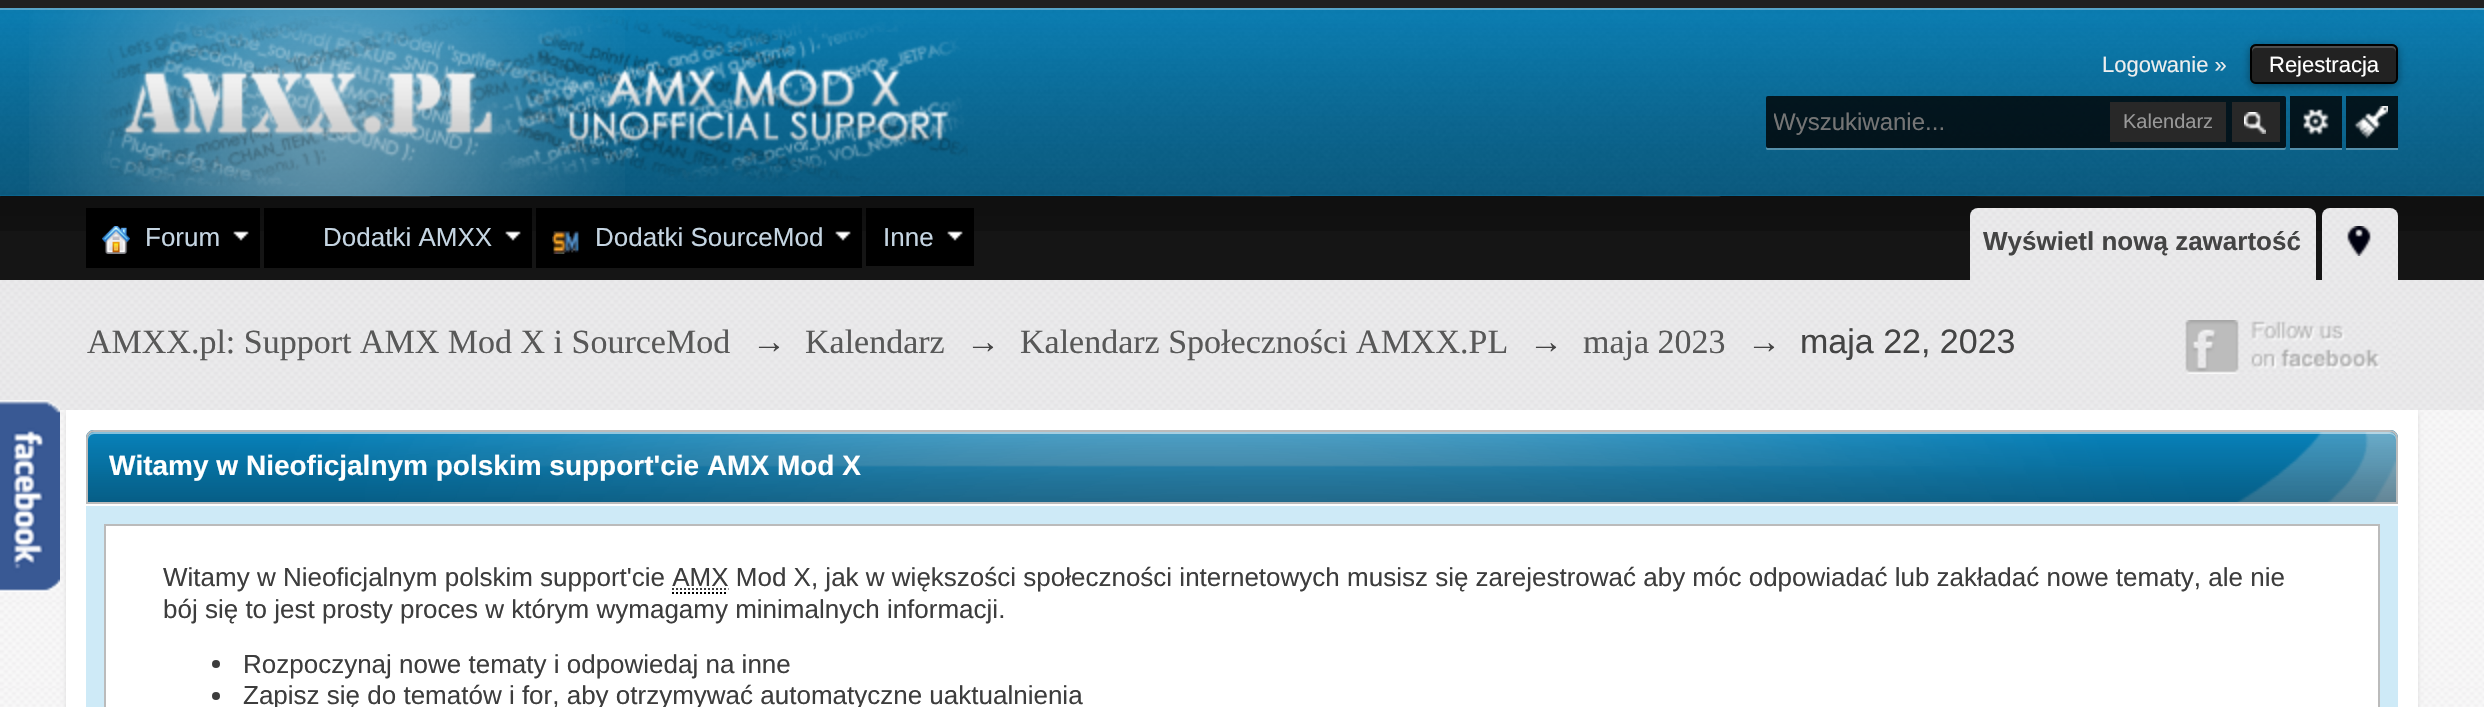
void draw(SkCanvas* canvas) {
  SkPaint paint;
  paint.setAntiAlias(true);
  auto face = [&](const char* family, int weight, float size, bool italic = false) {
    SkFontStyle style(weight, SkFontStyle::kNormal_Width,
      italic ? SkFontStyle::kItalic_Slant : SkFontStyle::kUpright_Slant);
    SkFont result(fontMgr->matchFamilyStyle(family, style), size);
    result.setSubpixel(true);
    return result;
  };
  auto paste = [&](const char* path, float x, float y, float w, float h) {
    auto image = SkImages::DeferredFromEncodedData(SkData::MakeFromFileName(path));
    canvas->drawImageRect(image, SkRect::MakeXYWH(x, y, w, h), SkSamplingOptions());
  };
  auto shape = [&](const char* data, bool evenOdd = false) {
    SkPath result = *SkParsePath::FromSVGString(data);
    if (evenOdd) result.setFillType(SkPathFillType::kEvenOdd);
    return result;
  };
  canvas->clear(0xffffffff);
  paste("img/1.png", 0, 410, 2484, 297);
  paint.setColor(0xffdbdbdb);
  paint.setMaskFilter(SkMaskFilter::MakeBlur(kNormal_SkBlurStyle, 2));
  canvas->drawRect(SkRect::MakeXYWH(66, 412, 2352, 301), paint);
  paint.setMaskFilter(nullptr);
  paste("img/16.png", 0, 280, 2484, 130);
  paste("img/2.png", 0, 400, 60, 192);
  paint.setColor(0xff202020);
  canvas->drawRect(SkRect::MakeXYWH(0, 0, 2484, 8), paint);
  paint.setColor(0xff0895d6);
  canvas->drawRect(SkRect::MakeXYWH(0, 8, 2484, 188), paint);
  paste("img/3.png", 0, 8, 2484, 188);
  paint.setColor(0x4dffffff);
  canvas->drawRect(SkRect::MakeXYWH(0, 8, 2484, 2), paint);
  paste("img/4.png", 29, 8, 596, 188);
  paste("img/5.png", 101, 16, 867, 170);
  paint.setColor(0x66000000);
  paint.setMaskFilter(SkMaskFilter::MakeBlur(kNormal_SkBlurStyle, 4));
  canvas->drawRoundRect(SkRect::MakeXYWH(2250, 46, 148, 40), 6, 6, paint);
  paint.setMaskFilter(nullptr);
  paint.setColor(0xff222222);
  canvas->drawRoundRect(SkRect::MakeXYWH(2250, 44, 148, 40), 6, 6, paint);
  paint.setColor(0xff4e4e4e);
  canvas->drawPath(shape("M2256 48H2392C2394 48 2396 50 2396 52V50C2396 48 2394 46 2392 46H2256C2254 46 2252 48 2252 50V52C2252 50 2254 48 2256 48Z"), paint);
  paint.setStroke(true);
  paint.setStrokeWidth(2);
  paint.setColor(0xff000000);
  canvas->drawRoundRect(SkRect::MakeXYWH(2251, 45, 146, 38), 5, 5, paint);
  paint.setStroke(false);
  paint.setColor(0x4dffffff);
  canvas->drawPath(shape("M1766 146V149L1767 150H2284C2286 150 2286 148 2286 146C2286 147 2285 148 2284 148H1768C1767 148 1766 147 1766 146Z"), paint);
  paint.setColor(0xcc000000);
  canvas->drawRoundRect(SkRect::MakeXYWH(1766, 96, 520, 52), 2, 2, paint);
  paint.setColor(0xff282828);
  canvas->drawRect(SkRect::MakeXYWH(2110, 102, 116, 40), paint);
  canvas->drawRect(SkRect::MakeXYWH(2232, 102, 48, 40), paint);
  paste("img/6.png", 2244, 112, 22, 22);
  paint.setColor(0xff5490ac);
  canvas->drawRect(SkRect::MakeXYWH(2290, 148, 52, 2), paint);
  paint.setColor(0xcc000000);
  canvas->drawRect(SkRect::MakeXYWH(2290, 96, 52, 52), paint);
  paste("img/7.png", 2303, 109, 26, 26);
  paint.setColor(0xff5490ac);
  canvas->drawRect(SkRect::MakeXYWH(2346, 148, 52, 2), paint);
  paint.setColor(0xcc000000);
  canvas->drawRect(SkRect::MakeXYWH(2346, 96, 52, 52), paint);
  paste("img/8.png", 2354, 106, 34, 33);
  paint.setColor(0xff151515);
  canvas->drawRect(SkRect::MakeXYWH(0, 196, 2484, 84), paint);
  paste("img/9.png", 0, 196, 2484, 35);
  paint.setColor(0xff000000);
  canvas->drawRect(SkRect::MakeXYWH(86, 208, 174, 60), paint);
  paste("img/10.png", 233, 231, 16, 10);
  paste("img/11.png", 102, 226, 28, 28);
  canvas->drawRect(SkRect::MakeXYWH(264, 208, 268, 60), paint);
  paste("img/10.png", 505, 231, 16, 10);
  canvas->drawRect(SkRect::MakeXYWH(536, 208, 326, 60), paint);
  paste("img/10.png", 835, 231, 16, 10);
  paste("img/12.png", 552, 231, 27, 23);
  canvas->drawRect(SkRect::MakeXYWH(866, 208, 108, 58), paint);
  paste("img/10.png", 947, 231, 16, 10);
  paste("img/13.png", 1970, 208, 346, 72);
  paste("img/14.png", 2322, 208, 76, 72);
  paste("img/15.png", 2347, 226, 24, 30);
  paste("img/17.png", 2184, 320, 212, 54);
  paste("img/18.png", 2185, 320, 194, 53);
  paint.setColor(0xffffffff);
  canvas->drawRect(SkRect::MakeXYWH(66, 410, 2352, 297), paint);
  paint.setColor(0xff0895d6);
  canvas->drawPath(shape("M94 430H2390C2394.5 430 2398 433.5 2398 438V504H86V438C86 433.5 89.5 430 94 430Z"), paint);
  paste("img/19.png", 86, 430, 2312, 72);
  paint.setColor(0x80ffffff);
  canvas->drawPath(shape("M94 434H2390C2393 434 2396 437 2396 440V438C2396 435 2393 432 2390 432H94C91 432 88 435 88 438V440C88 437 91 434 94 434Z"), paint);
  paint.setStroke(true);
  paint.setColor(0xffbbbbbb);
  canvas->drawPath(shape("M94 431H2390C2394 431 2397 434 2397 438V503H87V438C87 434 90 431 94 431Z"), paint);
  paint.setStroke(false);
  paint.setColor(0xffceeaf7);
  canvas->drawRect(SkRect::MakeXYWH(86, 506, 2312, 201), paint);
  paint.setColor(0xffffffff);
  canvas->drawRect(SkRect::MakeXYWH(105, 525, 2274, 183), paint);
  paint.setStroke(true);
  paint.setColor(0xffbbbbbb);
  canvas->drawRect(SkRect::MakeXYWH(105, 525, 2274, 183), paint);
  paint.setColor(0xff3d3d3d);
  paint.setPathEffect(SkDashPathEffect::Make({{2, 2}}, 0));
  canvas->drawPath(shape("M672 589H728.5"), paint);
  paint.setPathEffect(nullptr);
  paint.setColor(0xff000000);
  paint.setPathEffect(SkDashPathEffect::Make({{2, 2}}, 0));
  canvas->drawPath(shape("M672 593H728"), paint);
  paint.setPathEffect(nullptr);
  paint.setStroke(false);
  paint.setColor(0xff3d3d3d);
  canvas->drawCircle(216, 664, 4, paint);
  canvas->drawCircle(216, 696, 4, paint);
  auto f0 = face("Liberation Sans", 400, 22);
  paint.setColor(0xffeeeeee);
  canvas->drawString("Logowanie »", 2102, 72, f0, paint);
  paint.setColor(0xffffffff);
  canvas->drawString("Rejestracja", 2269, 72, f0, paint);
  canvas->save();
  canvas->clipRect(SkRect::MakeXYWH(1774, 108, 260, 28));
  auto f1 = face("Liberation Sans", 400, 24);
  paint.setColor(0xff757575);
  canvas->drawString("Wyszukiwanie...", 1773, 130, f1, paint);
  canvas->restore();
  auto f2 = face("Liberation Sans", 400, 20);
  paint.setColor(0xff999999);
  canvas->drawString("Kalendarz", 2123, 128, f2, paint);
  auto f3 = face("Liberation Sans", 400, 26);
  paint.setColor(0xffc5d5e2);
  {
    const struct { const char* s; float x, y; } items[] = {
      {"Forum", 145, 246},
      {"Dodatki AMXX", 323, 246},
      {"Dodatki SourceMod", 595, 246},
      {"Inne", 883, 246},
    };
    for (auto [s, x, y] : items) {
      canvas->drawString(s, x, y, f3, paint);
    }
  }
  auto f4 = face("Liberation Sans", 700, 26);
  paint.setColor(0xff444444);
  canvas->drawString("Wyświetl nową zawartość", 1983, 250, f4, paint);
  auto f5 = face("Liberation Serif", 400, 34);
  paint.setColor(0xff585858);
  canvas->drawString("AMXX.pl: Support AMX Mod X i SourceMod", 87, 353, f5, paint);
  auto f6 = face("Liberation Sans", 400, 34);
  paint.setColor(0xff444444);
  canvas->drawString("→", 752, 353, f6, paint);
  paint.setColor(0xff585858);
  canvas->drawString("Kalendarz", 805, 353, f5, paint);
  paint.setColor(0xff444444);
  canvas->drawString("→", 966, 353, f6, paint);
  paint.setColor(0xff585858);
  canvas->drawString("Kalendarz Społeczności AMXX.PL", 1020, 353, f5, paint);
  paint.setColor(0xff444444);
  canvas->drawString("→", 1529, 353, f6, paint);
  paint.setColor(0xff585858);
  canvas->drawString("maja 2023", 1583, 353, f5, paint);
  paint.setColor(0xff444444);
  canvas->drawString("→", 1747, 353, f6, paint);
  canvas->drawString("maja 22, 2023", 1800, 353, f6, paint);
  auto f7 = face("Liberation Sans", 700, 28);
  paint.setColor(0xffffffff);
  canvas->drawString("Witamy w Nieoficjalnym polskim support'cie AMX Mod X", 109, 475, f7, paint);
  paint.setColor(0xff3d3d3d);
  {
    const struct { const char* s; float x, y; } items[] = {
      {"Witamy w Nieoficjalnym polskim support'cie AMX Mod X, jak w większości społeczności internetowych musisz się zarejestrować aby móc odpowiadać lub zakładać nowe tematy, ale nie", 163, 586},
      {"bój się to jest prosty proces w którym wymagamy minimalnych informacji.", 163, 618},
      {"Rozpoczynaj nowe tematy i odpowiedaj na inne", 243, 673},
      {"Zapisz się do tematów i for, aby otrzymywać automatyczne uaktualnienia", 243, 704},
    };
    for (auto [s, x, y] : items) {
      canvas->drawString(s, x, y, f3, paint);
    }
  }
}
